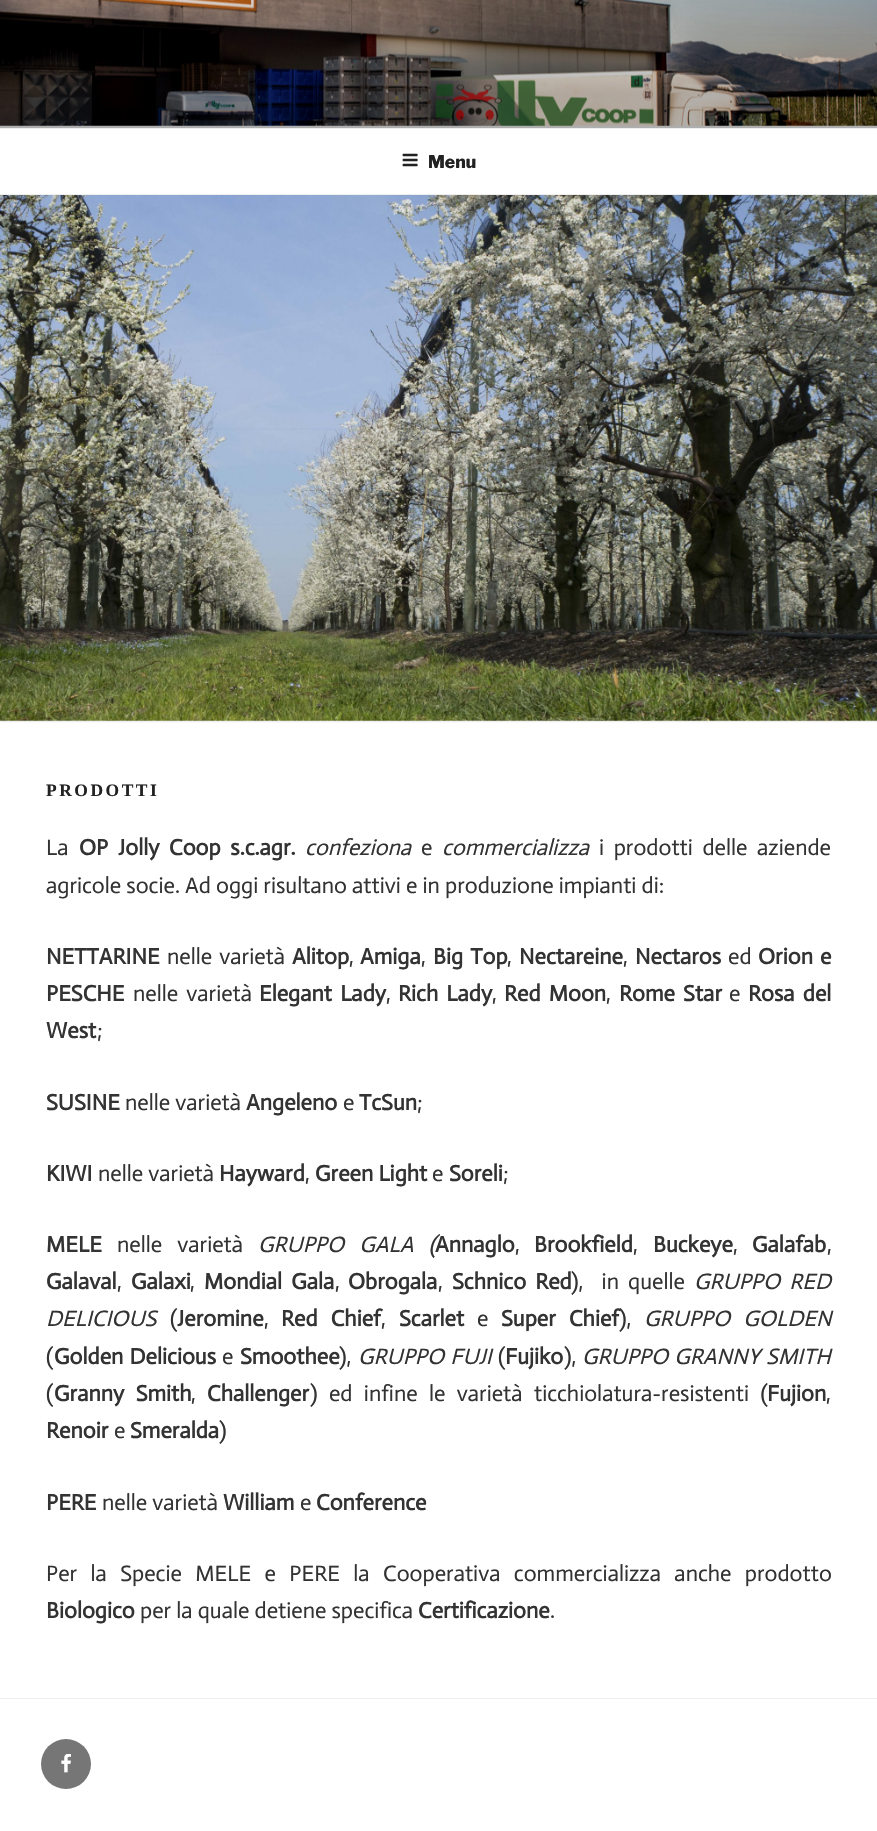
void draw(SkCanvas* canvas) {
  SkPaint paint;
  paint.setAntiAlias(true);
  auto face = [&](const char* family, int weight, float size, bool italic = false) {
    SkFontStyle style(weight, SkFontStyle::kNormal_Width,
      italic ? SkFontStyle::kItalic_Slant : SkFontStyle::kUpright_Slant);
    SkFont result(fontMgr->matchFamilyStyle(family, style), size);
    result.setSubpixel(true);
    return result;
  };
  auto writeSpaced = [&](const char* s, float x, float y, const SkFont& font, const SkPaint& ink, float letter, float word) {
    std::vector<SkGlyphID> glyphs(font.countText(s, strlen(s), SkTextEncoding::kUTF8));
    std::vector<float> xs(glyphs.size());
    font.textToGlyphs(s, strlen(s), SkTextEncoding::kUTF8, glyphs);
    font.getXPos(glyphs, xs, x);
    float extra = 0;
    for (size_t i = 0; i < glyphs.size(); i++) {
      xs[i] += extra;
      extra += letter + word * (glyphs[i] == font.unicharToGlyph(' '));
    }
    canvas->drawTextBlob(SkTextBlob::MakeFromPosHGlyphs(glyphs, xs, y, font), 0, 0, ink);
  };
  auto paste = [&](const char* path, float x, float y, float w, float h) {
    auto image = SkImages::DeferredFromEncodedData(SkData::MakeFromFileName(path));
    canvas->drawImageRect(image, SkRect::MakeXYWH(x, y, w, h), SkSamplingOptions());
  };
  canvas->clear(0xffffffff);
  paint.setColor(0xfffafafa);
  canvas->drawRect(SkRect::MakeXYWH(0, 125, 877, 3), paint);
  paste("img/1.png", 0, 0, 877, 126);
  {
    const SkColor colors[] = {0x00000000, 0x4d000000, 0x4d000000};
    const float stops[] = {0, 0.75f, 1};
    const SkPoint ends[] = {{439, -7.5f}, {439, 128}};
    paint.setShader(SkGradientShader::MakeLinear(ends, colors, stops, 3, SkTileMode::kClamp));
    paint.setAlpha(255);
  }
  canvas->drawRect(SkRect::MakeXYWH(0, 0, 877, 128), paint);
  paint.setShader(nullptr);
  paint.setColor(0xffeeeeee);
  canvas->drawRect(SkRect::MakeXYWH(0, 128, 877, 1), paint);
  canvas->drawRect(SkRect::MakeXYWH(0, 194, 877, 1), paint);
  paste("img/2.png", 402, 153, 16, 14);
  paint.setColor(0xfffafafa);
  canvas->drawRect(SkRect::MakeXYWH(0, 720, 877, 3), paint);
  paint.setColor(0xffeeeeee);
  canvas->drawRect(SkRect::MakeXYWH(0, 721, 877, 1), paint);
  paste("img/3.png", 0, 195, 877, 526);
  canvas->drawRect(SkRect::MakeXYWH(0, 1698, 877, 1), paint);
  paint.setColor(0xff767676);
  canvas->drawCircle(66, 1764, 25, paint);
  paste("img/4.png", 61, 1754, 10, 19);
  auto f0 = face("Libre Franklin", 800, 17.5f);
  paint.setColor(0xff222222);
  canvas->drawString("Menu", 428, 168, f0, paint);
  auto f1 = face("Liberation Serif", 700, 17.5f);
  writeSpaced("PRODOTTI", 46, 796, f1, paint, 2.5f, 0);
  auto f2 = face("Actor", 400, 22.5f);
  paint.setColor(0xff333333);
  canvas->drawString("La", 46, 855, f2, paint);
  auto f3 = face("Actor", 700, 22.5f);
  writeSpaced("OP Jolly Coop s.c.agr.", 79, 855, f3, paint, 0, 4.5f);
  auto f4 = face("Actor", 400, 22.5f, true);
  canvas->drawString("confeziona", 305, 855, f4, paint);
  canvas->drawString("e", 421, 855, f2, paint);
  canvas->drawString("commercializza", 442, 855, f4, paint);
  writeSpaced("i prodotti delle aziende", 599, 855, f2, paint, 0, 4.5f);
  canvas->drawString("agricole socie. Ad oggi risultano attivi e in produzione impianti di:", 46, 893, f2, paint);
  canvas->drawString("NETTARINE", 46, 964, f3, paint);
  writeSpaced("nelle varietà", 167, 964, f2, paint, 0, 2);
  canvas->drawString("Alitop", 292, 964, f3, paint);
  canvas->drawString(",", 349, 964, f2, paint);
  canvas->drawString("Amiga", 360, 964, f3, paint);
  canvas->drawString(",", 421, 964, f2, paint);
  writeSpaced("Big Top", 433, 964, f3, paint, 0, 2);
  canvas->drawString(",", 507, 964, f2, paint);
  canvas->drawString("Nectareine", 519, 964, f3, paint);
  canvas->drawString(",", 623, 964, f2, paint);
  canvas->drawString("Nectaros", 635, 964, f3, paint);
  canvas->drawString("ed", 728, 964, f2, paint);
  writeSpaced("Orion e", 758, 964, f3, paint, 0, 2);
  canvas->drawString("PESCHE", 46, 1001, f3, paint);
  writeSpaced("nelle varietà", 133, 1001, f2, paint, 0, 3);
  writeSpaced("Elegant Lady", 259, 1001, f3, paint, 0, 3);
  canvas->drawString(",", 386, 1001, f2, paint);
  writeSpaced("Rich Lady", 398, 1001, f3, paint, 0, 3);
  canvas->drawString(",", 492, 1001, f2, paint);
  writeSpaced("Red Moon", 504, 1001, f3, paint, 0, 3);
  canvas->drawString(",", 606, 1001, f2, paint);
  writeSpaced("Rome Star", 619, 1001, f3, paint, 0, 3);
  canvas->drawString("e", 729, 1001, f2, paint);
  writeSpaced("Rosa del", 748, 1001, f3, paint, 0, 3);
  canvas->drawString("West", 46, 1038, f3, paint);
  canvas->drawString(";", 97, 1038, f2, paint);
  canvas->drawString("SUSINE", 46, 1110, f3, paint);
  canvas->drawString("nelle varietà", 125, 1110, f2, paint);
  canvas->drawString("Angeleno", 246, 1110, f3, paint);
  canvas->drawString("e", 343, 1110, f2, paint);
  canvas->drawString("TcSun", 359, 1110, f3, paint);
  canvas->drawString(";", 417, 1110, f2, paint);
  canvas->drawString("KIWI", 46, 1181, f3, paint);
  canvas->drawString("nelle varietà", 98, 1181, f2, paint);
  canvas->drawString("Hayward", 219, 1181, f3, paint);
  canvas->drawString(",", 305, 1181, f2, paint);
  canvas->drawString("Green Light", 315, 1181, f3, paint);
  canvas->drawString("e", 432, 1181, f2, paint);
  canvas->drawString("Soreli", 449, 1181, f3, paint);
  canvas->drawString(";", 503, 1181, f2, paint);
  canvas->drawString("MELE", 46, 1252, f3, paint);
  writeSpaced("nelle varietà", 117, 1252, f2, paint, 0, 10);
  writeSpaced("GRUPPO GALA (", 258, 1252, f4, paint, 0, 10);
  canvas->drawString("Annaglo", 435, 1252, f3, paint);
  canvas->drawString(",", 515, 1252, f2, paint);
  canvas->drawString("Brookfield", 534, 1252, f3, paint);
  canvas->drawString(",", 633, 1252, f2, paint);
  canvas->drawString("Buckeye", 653, 1252, f3, paint);
  canvas->drawString(",", 733, 1252, f2, paint);
  canvas->drawString("Galafab", 752, 1252, f3, paint);
  canvas->drawString(",", 827, 1252, f2, paint);
  canvas->drawString("Galaval", 46, 1289, f3, paint);
  canvas->drawString(",", 117, 1289, f2, paint);
  canvas->drawString("Galaxi", 131, 1289, f3, paint);
  canvas->drawString(",", 190, 1289, f2, paint);
  writeSpaced("Mondial Gala", 204, 1289, f3, paint, 0, 4);
  canvas->drawString(",", 335, 1289, f2, paint);
  canvas->drawString("Obrogala", 348, 1289, f3, paint);
  canvas->drawString(",", 438, 1289, f2, paint);
  writeSpaced("Schnico Red", 452, 1289, f3, paint, 0, 4);
  writeSpaced("),  in quelle", 571, 1289, f2, paint, 0, 4);
  writeSpaced("GRUPPO RED", 694, 1289, f4, paint, 0, 4);
  canvas->drawString("DELICIOUS", 46, 1326, f4, paint);
  canvas->drawString("(", 170, 1326, f2, paint);
  canvas->drawString("Jeromine", 177, 1326, f3, paint);
  canvas->drawString(",", 264, 1326, f2, paint);
  writeSpaced("Red Chief", 281, 1326, f3, paint, 0, 8);
  canvas->drawString("Scarlet", 399, 1326, f3, paint);
  canvas->drawString("e", 477, 1326, f2, paint);
  writeSpaced("Super Chief", 501, 1326, f3, paint, 0, 8);
  canvas->drawString("),", 619, 1326, f2, paint);
  writeSpaced("GRUPPO GOLDEN", 644, 1326, f4, paint, 0, 8);
  canvas->drawString(",", 381, 1326, f2, paint);
  canvas->drawString("(", 46, 1364, f2, paint);
  writeSpaced("Golden Delicious", 54, 1364, f3, paint, 0, 1);
  canvas->drawString("e", 222, 1364, f2, paint);
  canvas->drawString("Smoothee", 240, 1364, f3, paint);
  canvas->drawString("),", 339, 1364, f2, paint);
  writeSpaced("GRUPPO FUJI", 358, 1364, f4, paint, 0, 1);
  canvas->drawString("(", 498, 1364, f2, paint);
  canvas->drawString("Fujiko", 505, 1364, f3, paint);
  canvas->drawString("),", 564, 1364, f2, paint);
  writeSpaced("GRUPPO GRANNY SMITH", 582, 1364, f4, paint, 0, 1);
  canvas->drawString("(", 46, 1401, f2, paint);
  writeSpaced("Granny Smith", 54, 1401, f3, paint, 0, 6.25f);
  canvas->drawString(",", 191, 1401, f2, paint);
  canvas->drawString("Challenger", 207, 1401, f3, paint);
  writeSpaced(") ed infine le varietà ticchiolatura-resistenti (", 310, 1401, f2, paint, 0, 6.25f);
  canvas->drawString("Fujion", 767, 1401, f3, paint);
  canvas->drawString(",", 826, 1401, f2, paint);
  canvas->drawString("Renoir", 46, 1438, f3, paint);
  canvas->drawString("e", 114, 1438, f2, paint);
  canvas->drawString("Smeralda", 130, 1438, f3, paint);
  canvas->drawString(")", 219, 1438, f2, paint);
  canvas->drawString("PERE", 46, 1510, f3, paint);
  canvas->drawString("nelle varietà", 102, 1510, f2, paint);
  canvas->drawString("William", 223, 1510, f3, paint);
  canvas->drawString("e", 300, 1510, f2, paint);
  canvas->drawString("Conference", 316, 1510, f3, paint);
  writeSpaced("Per la Specie MELE e PERE la Cooperativa commercializza anche prodotto", 46, 1581, f2, paint, 0, 8.25f);
  canvas->drawString("Biologico", 46, 1618, f3, paint);
  canvas->drawString("per la quale detiene specifica", 140, 1618, f2, paint);
  canvas->drawString("Certificazione", 418, 1618, f3, paint);
  canvas->drawString(".", 550, 1618, f2, paint);
}
